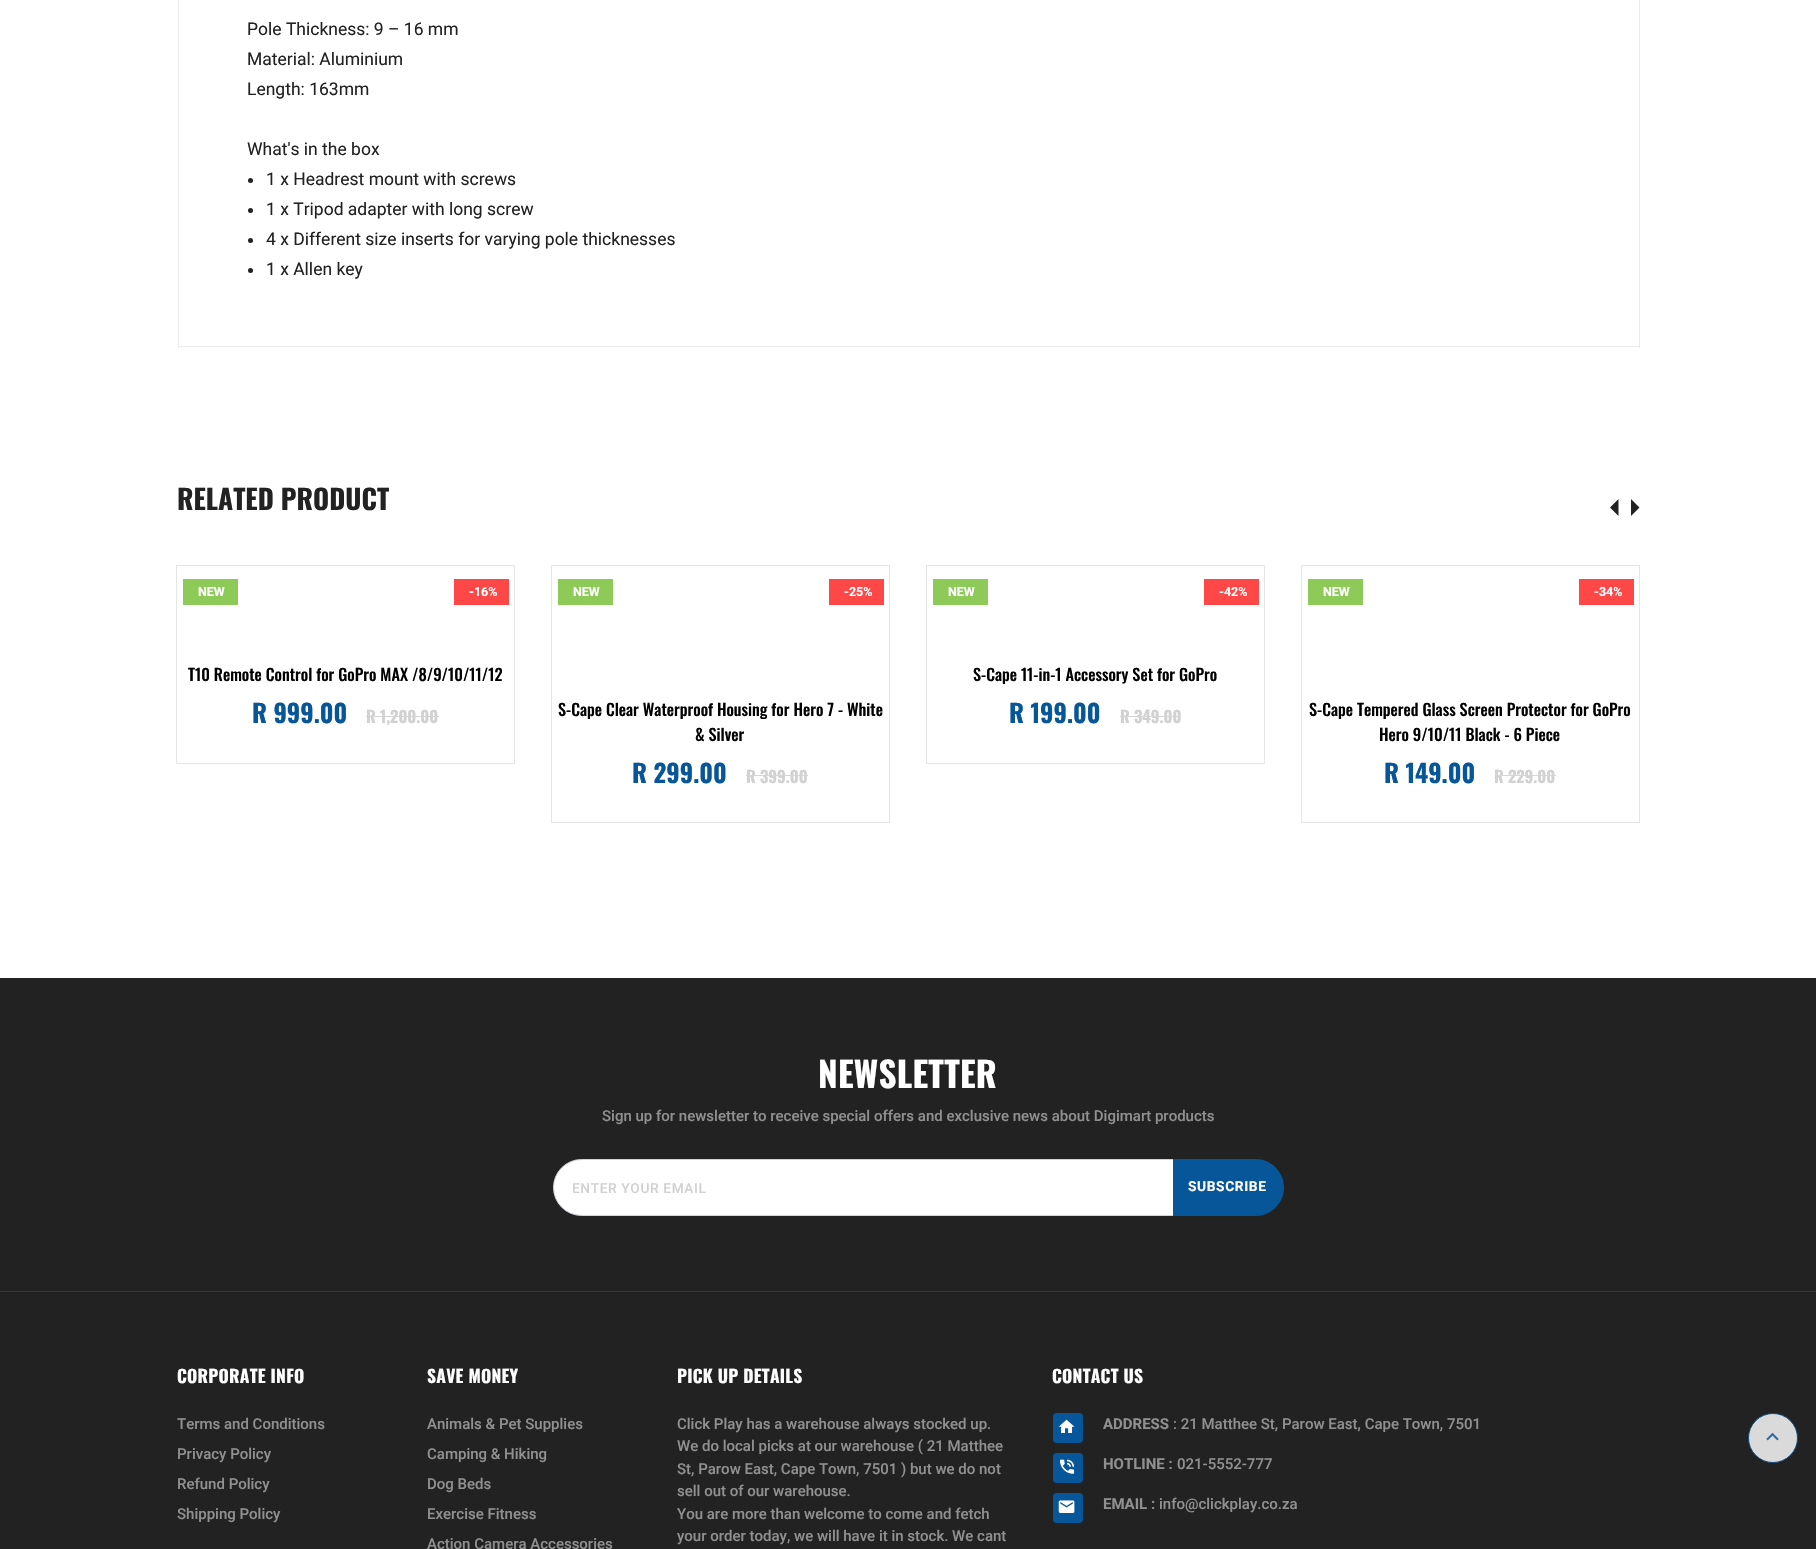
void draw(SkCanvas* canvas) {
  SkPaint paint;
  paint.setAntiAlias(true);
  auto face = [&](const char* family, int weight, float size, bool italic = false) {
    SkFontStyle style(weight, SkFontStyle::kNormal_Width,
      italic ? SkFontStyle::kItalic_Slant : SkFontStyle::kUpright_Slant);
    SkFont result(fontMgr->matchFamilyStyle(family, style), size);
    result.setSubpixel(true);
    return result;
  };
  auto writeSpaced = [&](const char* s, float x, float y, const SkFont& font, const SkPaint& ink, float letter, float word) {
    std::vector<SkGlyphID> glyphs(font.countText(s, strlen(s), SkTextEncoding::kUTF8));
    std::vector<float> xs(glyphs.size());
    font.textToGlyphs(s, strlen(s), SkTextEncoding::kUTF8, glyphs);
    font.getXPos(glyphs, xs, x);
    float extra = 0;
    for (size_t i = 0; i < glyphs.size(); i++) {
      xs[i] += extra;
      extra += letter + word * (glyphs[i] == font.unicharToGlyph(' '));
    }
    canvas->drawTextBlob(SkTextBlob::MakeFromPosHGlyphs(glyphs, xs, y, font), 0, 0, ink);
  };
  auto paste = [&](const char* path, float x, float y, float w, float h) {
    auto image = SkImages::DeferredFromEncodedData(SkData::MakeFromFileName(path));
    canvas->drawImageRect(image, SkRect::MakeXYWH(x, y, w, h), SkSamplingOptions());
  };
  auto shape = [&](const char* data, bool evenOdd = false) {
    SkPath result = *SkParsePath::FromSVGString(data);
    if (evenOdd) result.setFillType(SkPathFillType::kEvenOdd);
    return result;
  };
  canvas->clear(0xffffffff);
  {
    const struct { float x, y, w, h; SkColor color; } items[] = {
      {1639, 0, 1, 348, 0xffebebeb},
      {178, 346, 1462, 1, 0xffebebeb},
      {178, 0, 1, 348, 0xffebebeb},
    };
    for (auto [x, y, w, h, color] : items) {
      paint.setColor(color);
      canvas->drawRect(SkRect::MakeXYWH(x, y, w, h), paint);
    }
  }
  paint.setColor(0xff222222);
  canvas->drawCircle(250.5f, 180.5f, 2.5f, paint);
  canvas->drawCircle(250.5f, 210.5f, 2.5f, paint);
  canvas->drawCircle(250.5f, 240.5f, 2.5f, paint);
  canvas->drawCircle(250.5f, 270.5f, 2.5f, paint);
  canvas->drawPath(shape("M1618.5 499V516L1610 507.5ZM1631 516V499L1639.5 507.5Z"), paint);
  paint.setStroke(true);
  paint.setStrokeWidth(1);
  paint.setColor(0xffe6e6e6);
  canvas->drawRect(SkRect::MakeXYWH(176.5f, 565.5f, 338, 198), paint);
  paint.setStroke(false);
  paint.setColor(0xff8dca57);
  canvas->drawRect(SkRect::MakeXYWH(183, 579, 55, 26), paint);
  paint.setColor(0xfffe4848);
  canvas->drawRect(SkRect::MakeXYWH(454, 579, 55, 26), paint);
  paint.setStroke(true);
  paint.setColor(0xffe6e6e6);
  canvas->drawRect(SkRect::MakeXYWH(551.5f, 565.5f, 338, 257), paint);
  paint.setStroke(false);
  paint.setColor(0xff8dca57);
  canvas->drawRect(SkRect::MakeXYWH(558, 579, 55, 26), paint);
  paint.setColor(0xfffe4848);
  canvas->drawRect(SkRect::MakeXYWH(829, 579, 55, 26), paint);
  paint.setStroke(true);
  paint.setColor(0xffe6e6e6);
  canvas->drawRect(SkRect::MakeXYWH(926.5f, 565.5f, 338, 198), paint);
  paint.setStroke(false);
  paint.setColor(0xff8dca57);
  canvas->drawRect(SkRect::MakeXYWH(933, 579, 55, 26), paint);
  paint.setColor(0xfffe4848);
  canvas->drawRect(SkRect::MakeXYWH(1204, 579, 55, 26), paint);
  paint.setStroke(true);
  paint.setColor(0xffe6e6e6);
  canvas->drawRect(SkRect::MakeXYWH(1301.5f, 565.5f, 338, 257), paint);
  paint.setStroke(false);
  {
    const struct { float x, y, w, h; SkColor color; } items[] = {
      {1308, 579, 55, 26, 0xff8dca57},
      {1579, 579, 55, 26, 0xfffe4848},
      {0, 978, 1816, 571, 0xff222222},
      {0, 1291, 1816, 1, 0xff383838},
    };
    for (auto [x, y, w, h, color] : items) {
      paint.setColor(color);
      canvas->drawRect(SkRect::MakeXYWH(x, y, w, h), paint);
    }
  }
  paint.setColor(0xffffffff);
  canvas->drawRoundRect(SkRect::MakeXYWH(553.5f, 1159.5f, 711, 56), 28, 28, paint);
  paint.setStroke(true);
  paint.setColor(0xffced4da);
  canvas->drawRoundRect(SkRect::MakeXYWH(553.5f, 1159.5f, 711, 56), 28, 28, paint);
  paint.setStroke(false);
  paint.setColor(0xff08569a);
  canvas->drawPath(shape("M1173 1159H1255.5C1271 1159 1284 1172 1284 1187.5C1284 1203 1271 1216 1255.5 1216H1173Z"), paint);
  canvas->drawRoundRect(SkRect::MakeXYWH(1053, 1413, 30, 30), 4, 4, paint);
  paste("img/1.png", 1058, 1419, 17, 14);
  canvas->drawRoundRect(SkRect::MakeXYWH(1053, 1453, 30, 30), 4, 4, paint);
  paste("img/2.png", 1060, 1459, 15, 15);
  canvas->drawRoundRect(SkRect::MakeXYWH(1053, 1493, 30, 30), 4, 4, paint);
  paste("img/3.png", 1058, 1500, 17, 13);
  paint.setColor(0xffdadada);
  canvas->drawCircle(1773, 1438, 24.5f, paint);
  paint.setStroke(true);
  paint.setColor(0xff0c4d86);
  canvas->drawCircle(1773, 1438, 24.5f, paint);
  paste("img/4.png", 1766, 1432, 13, 9);
  auto f0 = face("Roboto", 400, 17.5f);
  paint.setStroke(false);
  paint.setColor(0xff222222);
  {
    const struct { const char* s; float x, y; } items[] = {
      {"Pole Thickness: 9 – 16 mm", 247, 35},
      {"Material: Aluminium", 247, 65},
      {"Length: 163mm", 247, 95},
      {"What's in the box", 247, 155},
      {"1 x Headrest mount with screws", 266, 185},
      {"1 x Tripod adapter with long screw", 266, 215},
      {"4 x Different size inserts for varying pole thicknesses", 266, 245},
      {"1 x Allen key", 266, 275},
    };
    for (auto [s, x, y] : items) {
      canvas->drawString(s, x, y, f0, paint);
    }
  }
  auto f1 = face("Oswald", 700, 27.5f);
  canvas->drawString("RELATED PRODUCT", 177, 510, f1, paint);
  auto f2 = face("Roboto", 700, 12.5f);
  paint.setColor(0xffffffff);
  canvas->drawString("NEW", 198, 596, f2, paint);
  canvas->drawString("-16%", 469, 596, f2, paint);
  auto f3 = face("Oswald", 500, 16.25f);
  paint.setColor(0xff000000);
  canvas->drawString("T10 Remote Control for GoPro MAX /8/9/10/11/12", 188, 681, f3, paint);
  auto f4 = face("Oswald", 700, 25);
  paint.setColor(0xff08569a);
  canvas->drawString("R 999.00", 252, 723, f4, paint);
  auto f5 = face("Oswald", 700, 16.25f);
  paint.setColor(0xffd1d1d1);
  canvas->drawString("R 1,200.00", 366, 723, f5, paint);
  paint.setColor(0xffd5d5d5);
  canvas->drawRect(SkRect::MakeXYWH(366, 716, 73, 1), paint);
  paint.setColor(0xffffffff);
  canvas->drawString("NEW", 573, 596, f2, paint);
  canvas->drawString("-25%", 844, 596, f2, paint);
  paint.setColor(0xff000000);
  canvas->drawString("S-Cape Clear Waterproof Housing for Hero 7 - White", 558, 716, f3, paint);
  canvas->drawString("& Silver", 695, 741, f3, paint);
  paint.setColor(0xff08569a);
  canvas->drawString("R 299.00", 632, 783, f4, paint);
  paint.setColor(0xffd1d1d1);
  canvas->drawString("R 399.00", 746, 783, f5, paint);
  paint.setColor(0xffd5d5d5);
  canvas->drawRect(SkRect::MakeXYWH(746, 775, 62, 1), paint);
  paint.setColor(0xffffffff);
  canvas->drawString("NEW", 948, 596, f2, paint);
  canvas->drawString("-42%", 1219, 596, f2, paint);
  paint.setColor(0xff000000);
  canvas->drawString("S-Cape 11-in-1 Accessory Set for GoPro", 973, 681, f3, paint);
  paint.setColor(0xff08569a);
  canvas->drawString("R 199.00", 1009, 723, f4, paint);
  paint.setColor(0xffd1d1d1);
  canvas->drawString("R 349.00", 1120, 723, f5, paint);
  paint.setColor(0xffd5d5d5);
  canvas->drawRect(SkRect::MakeXYWH(1120, 716, 61, 1), paint);
  paint.setColor(0xffffffff);
  canvas->drawString("NEW", 1323, 596, f2, paint);
  canvas->drawString("-34%", 1594, 596, f2, paint);
  paint.setColor(0xff000000);
  canvas->drawString("S-Cape Tempered Glass Screen Protector for GoPro", 1309, 716, f3, paint);
  canvas->drawString("Hero 9/10/11 Black - 6 Piece", 1379, 741, f3, paint);
  paint.setColor(0xff08569a);
  canvas->drawString("R 149.00", 1384, 783, f4, paint);
  paint.setColor(0xffd1d1d1);
  canvas->drawString("R 229.00", 1494, 783, f5, paint);
  paint.setColor(0xffd5d5d5);
  canvas->drawRect(SkRect::MakeXYWH(1495, 775, 61, 1), paint);
  auto f6 = face("Oswald", 700, 35);
  paint.setColor(0xffffffff);
  writeSpaced("NEWSLETTER", 818, 1088, f6, paint, 0.25f, 0);
  auto f7 = face("Roboto", 500, 15);
  paint.setColor(0xff909090);
  canvas->drawString("Sign up for newsletter to receive special offers and exclusive news about Digimart products", 602, 1121, f7, paint);
  canvas->save();
  canvas->clipRect(SkRect::MakeXYWH(573, 1180, 572, 16));
  auto f8 = face("Roboto", 500, 13.75f);
  paint.setColor(0xffd1d1d1);
  writeSpaced("ENTER YOUR EMAIL", 572, 1193, f8, paint, 0.6f, 0);
  canvas->restore();
  auto f9 = face("Roboto", 700, 13.75f);
  paint.setColor(0xffffffff);
  writeSpaced("SUBSCRIBE", 1188, 1191, f9, paint, 0.6f, 0);
  auto f10 = face("Oswald", 700, 17.5f);
  writeSpaced("CORPORATE INFO", 177, 1383, f10, paint, 0.25f, 0);
  paint.setColor(0xff909090);
  {
    const struct { const char* s; float x, y; } items[] = {
      {"Terms and Conditions", 177, 1429},
      {"Privacy Policy", 177, 1459},
      {"Refund Policy", 177, 1489},
      {"Shipping Policy", 177, 1519},
    };
    for (auto [s, x, y] : items) {
      canvas->drawString(s, x, y, f7, paint);
    }
  }
  paint.setColor(0xffffffff);
  writeSpaced("SAVE MONEY", 427, 1383, f10, paint, 0.25f, 0);
  paint.setColor(0xff909090);
  {
    const struct { const char* s; float x, y; } items[] = {
      {"Animals & Pet Supplies", 427, 1429},
      {"Camping & Hiking", 427, 1459},
      {"Dog Beds", 427, 1489},
      {"Exercise Fitness", 427, 1519},
      {"Action Camera Accessories", 427, 1549},
    };
    for (auto [s, x, y] : items) {
      canvas->drawString(s, x, y, f7, paint);
    }
  }
  paint.setColor(0xffffffff);
  writeSpaced("PICK UP DETAILS", 677, 1383, f10, paint, 0.25f, 0);
  paint.setColor(0xff909090);
  {
    const struct { const char* s; float x, y; } items[] = {
      {"Click Play has a warehouse always stocked up.", 677, 1429},
      {"We do local picks at our warehouse ( 21 Matthee", 677, 1451},
      {"St, Parow East, Cape Town, 7501 ) but we do not", 677, 1474},
      {"sell out of our warehouse.", 677, 1496},
      {"You are more than welcome to come and fetch", 677, 1519},
      {"your order today, we will have it in stock. We cant", 677, 1541},
    };
    for (auto [s, x, y] : items) {
      canvas->drawString(s, x, y, f7, paint);
    }
  }
  paint.setColor(0xffffffff);
  writeSpaced("CONTACT US", 1052, 1383, f10, paint, 0.25f, 0);
  auto f11 = face("Roboto", 700, 15);
  paint.setColor(0xff909090);
  canvas->drawString("ADDRESS", 1103, 1429, f11, paint);
  canvas->drawString(": 21 Matthee St, Parow East, Cape Town, 7501", 1173, 1429, f7, paint);
  canvas->drawString("HOTLINE :", 1103, 1469, f11, paint);
  canvas->drawString("021-5552-777", 1177, 1469, f7, paint);
  canvas->drawString("EMAIL :", 1103, 1509, f11, paint);
  canvas->drawString("info@clickplay.co.za", 1159, 1509, f7, paint);
}
